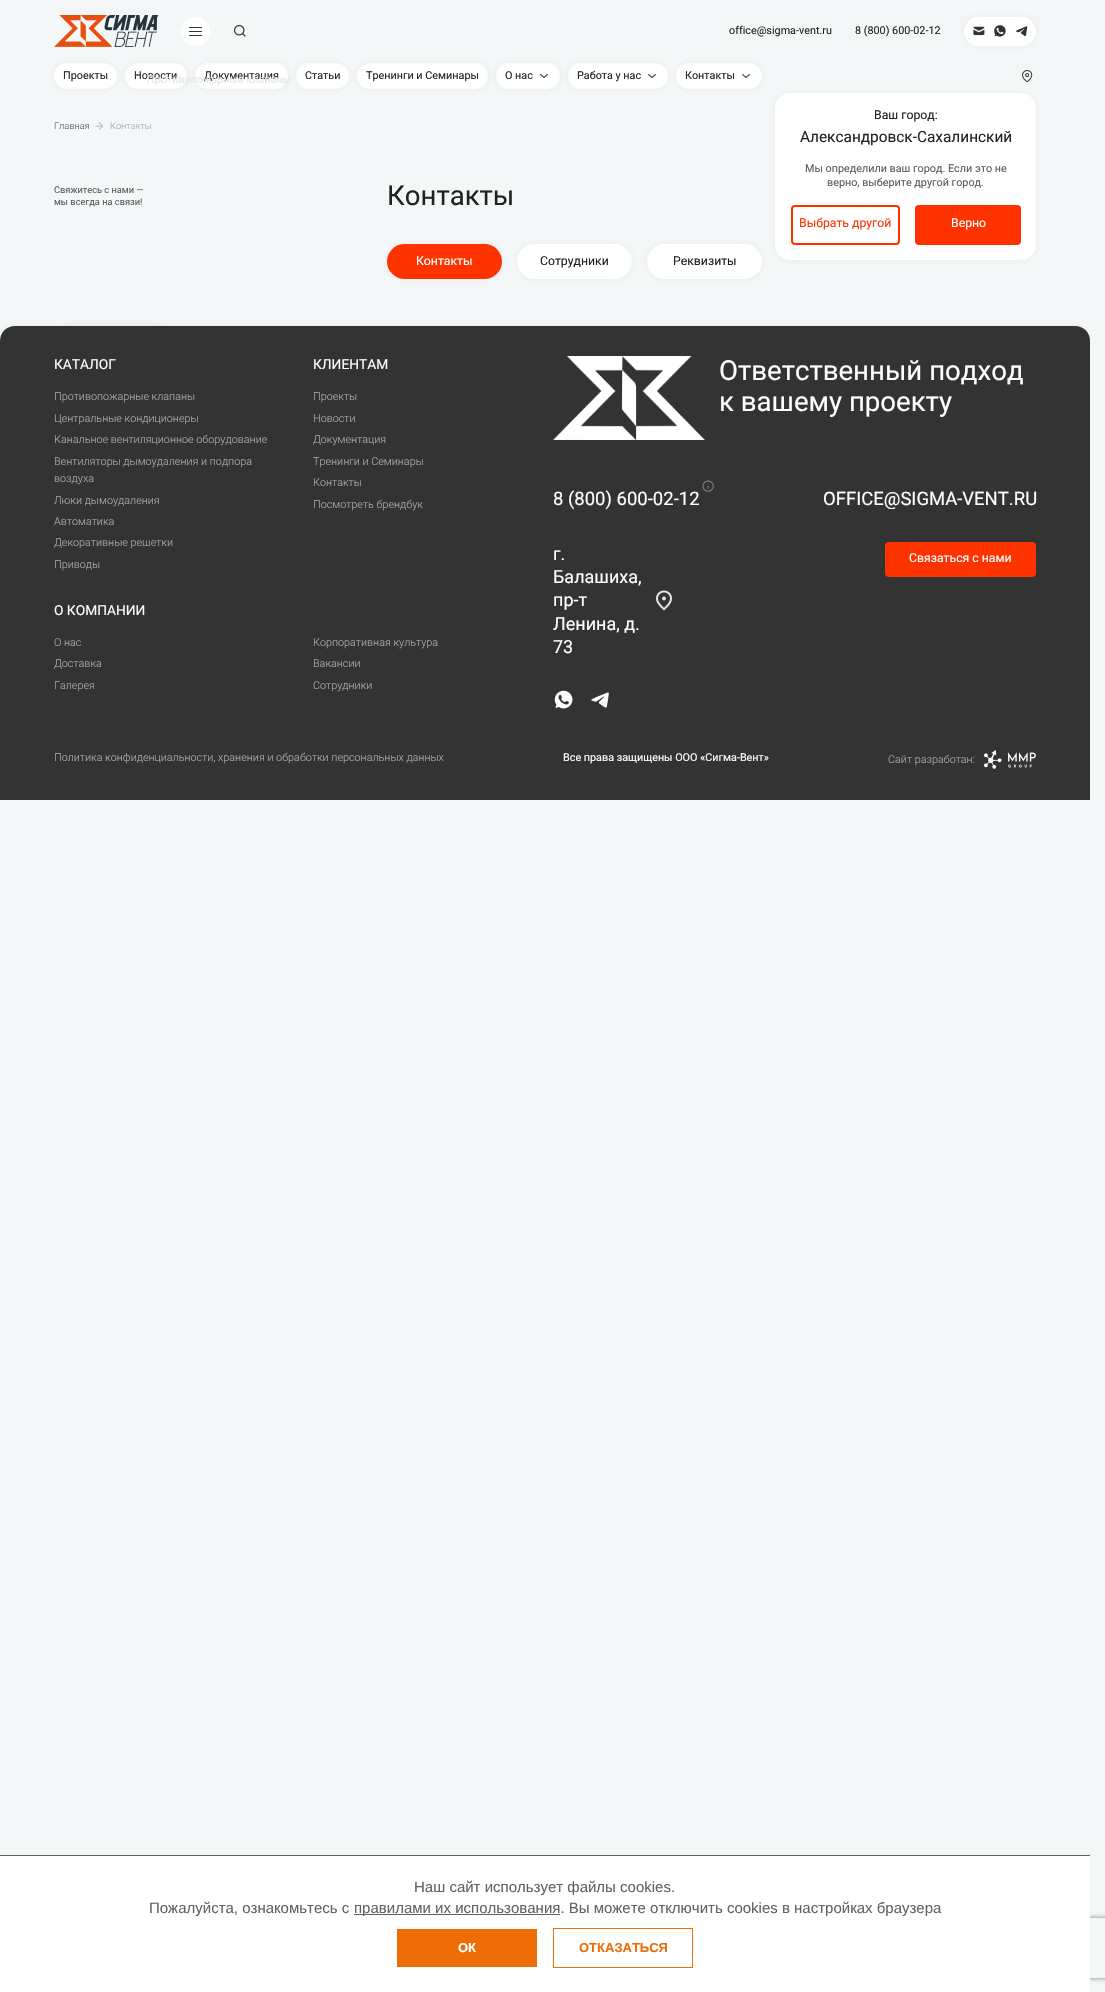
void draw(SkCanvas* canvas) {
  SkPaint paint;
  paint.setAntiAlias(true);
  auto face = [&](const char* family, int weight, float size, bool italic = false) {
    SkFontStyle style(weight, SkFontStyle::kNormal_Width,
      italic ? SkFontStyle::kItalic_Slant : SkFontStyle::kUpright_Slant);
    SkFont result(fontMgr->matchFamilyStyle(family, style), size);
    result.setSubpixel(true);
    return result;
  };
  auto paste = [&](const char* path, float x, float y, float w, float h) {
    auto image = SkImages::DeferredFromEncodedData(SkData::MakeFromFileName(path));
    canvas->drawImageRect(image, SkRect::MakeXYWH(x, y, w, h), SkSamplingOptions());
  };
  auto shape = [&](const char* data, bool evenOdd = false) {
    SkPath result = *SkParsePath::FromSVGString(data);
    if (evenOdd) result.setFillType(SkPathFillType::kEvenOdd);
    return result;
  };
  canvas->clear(0xfff4f7f8);
  paste("img/1.png", 54, 15, 104, 32);
  paint.setColor(0xffffffff);
  canvas->drawCircle(195.5f, 31.5f, 14.5f, paint);
  paint.setColor(0xff333333);
  canvas->drawRoundRect(SkRect::MakeXYWH(189, 27, 13, 1), 0.5f, 0.5f, paint);
  canvas->drawRoundRect(SkRect::MakeXYWH(189, 31, 13, 1), 0.5f, 0.5f, paint);
  canvas->drawRoundRect(SkRect::MakeXYWH(189, 35, 13, 1), 0.5f, 0.5f, paint);
  paste("img/2.png", 234, 25, 12, 12);
  paint.setColor(0x2696a3a7);
  paint.setMaskFilter(SkMaskFilter::MakeBlur(kNormal_SkBlurStyle, 3));
  canvas->drawRoundRect(SkRect::MakeXYWH(964, 17, 72, 29), 14.5f, 14.5f, paint);
  paint.setMaskFilter(nullptr);
  paint.setColor(0xffffffff);
  canvas->drawRoundRect(SkRect::MakeXYWH(964, 17, 72, 29), 14.5f, 14.5f, paint);
  paste("img/3.png", 973, 26, 12, 10);
  paste("img/4.png", 994, 25, 12, 12);
  paste("img/5.png", 1015, 26, 13, 10);
  paint.setColor(0x2696a3a7);
  paint.setMaskFilter(SkMaskFilter::MakeBlur(kNormal_SkBlurStyle, 3));
  canvas->drawRoundRect(SkRect::MakeXYWH(54, 63, 63, 26), 13, 13, paint);
  paint.setMaskFilter(nullptr);
  paint.setColor(0xffffffff);
  canvas->drawRoundRect(SkRect::MakeXYWH(54, 63, 63, 26), 13, 13, paint);
  paint.setColor(0x2696a3a7);
  paint.setMaskFilter(SkMaskFilter::MakeBlur(kNormal_SkBlurStyle, 3));
  canvas->drawRoundRect(SkRect::MakeXYWH(125, 63, 62, 26), 13, 13, paint);
  paint.setMaskFilter(nullptr);
  paint.setColor(0xffffffff);
  canvas->drawRoundRect(SkRect::MakeXYWH(125, 63, 62, 26), 13, 13, paint);
  paint.setColor(0x2696a3a7);
  paint.setMaskFilter(SkMaskFilter::MakeBlur(kNormal_SkBlurStyle, 3));
  canvas->drawRoundRect(SkRect::MakeXYWH(195, 63, 93, 26), 13, 13, paint);
  paint.setMaskFilter(nullptr);
  paint.setColor(0xffffffff);
  canvas->drawRoundRect(SkRect::MakeXYWH(195, 63, 93, 26), 13, 13, paint);
  paint.setColor(0x2696a3a7);
  paint.setMaskFilter(SkMaskFilter::MakeBlur(kNormal_SkBlurStyle, 3));
  canvas->drawRoundRect(SkRect::MakeXYWH(296, 63, 53, 26), 13, 13, paint);
  paint.setMaskFilter(nullptr);
  paint.setColor(0xffffffff);
  canvas->drawRoundRect(SkRect::MakeXYWH(296, 63, 53, 26), 13, 13, paint);
  paint.setColor(0x2696a3a7);
  paint.setMaskFilter(SkMaskFilter::MakeBlur(kNormal_SkBlurStyle, 3));
  canvas->drawRoundRect(SkRect::MakeXYWH(357, 63, 131, 26), 13, 13, paint);
  paint.setMaskFilter(nullptr);
  paint.setColor(0xffffffff);
  canvas->drawRoundRect(SkRect::MakeXYWH(357, 63, 131, 26), 13, 13, paint);
  paint.setColor(0x2696a3a7);
  paint.setMaskFilter(SkMaskFilter::MakeBlur(kNormal_SkBlurStyle, 3));
  canvas->drawRoundRect(SkRect::MakeXYWH(496, 63, 64, 26), 13, 13, paint);
  paint.setMaskFilter(nullptr);
  paint.setColor(0xffffffff);
  canvas->drawRoundRect(SkRect::MakeXYWH(496, 63, 64, 26), 13, 13, paint);
  paint.setStroke(true);
  paint.setStrokeWidth(1.1f);
  paint.setStrokeCap(SkPaint::kRound_Cap);
  paint.setStrokeJoin(SkPaint::kRound_Join);
  paint.setColor(0xff4f4f4f);
  canvas->drawPath(shape("M540.5 74.5L544 77.5L547.5 74.5"), paint);
  paint.setStroke(false);
  paint.setColor(0x2696a3a7);
  paint.setMaskFilter(SkMaskFilter::MakeBlur(kNormal_SkBlurStyle, 3));
  canvas->drawRoundRect(SkRect::MakeXYWH(568, 63, 100, 26), 13, 13, paint);
  paint.setMaskFilter(nullptr);
  paint.setColor(0xffffffff);
  canvas->drawRoundRect(SkRect::MakeXYWH(568, 63, 100, 26), 13, 13, paint);
  paint.setStroke(true);
  paint.setColor(0xff4f4f4f);
  canvas->drawPath(shape("M648.5 74.5L652 77.5L655.5 74.5"), paint);
  paint.setStroke(false);
  paint.setColor(0x2696a3a7);
  paint.setMaskFilter(SkMaskFilter::MakeBlur(kNormal_SkBlurStyle, 3));
  canvas->drawRoundRect(SkRect::MakeXYWH(676, 63, 86, 26), 13, 13, paint);
  paint.setMaskFilter(nullptr);
  paint.setColor(0xffffffff);
  canvas->drawRoundRect(SkRect::MakeXYWH(676, 63, 86, 26), 13, 13, paint);
  paint.setStroke(true);
  paint.setColor(0xff4f4f4f);
  canvas->drawPath(shape("M742.5 74.5L746 77.5L749.5 74.5"), paint);
  paste("img/6.png", 1022, 70, 11, 12);
  paint.setStroke(false);
  paint.setColor(0x2696a3a7);
  paint.setMaskFilter(SkMaskFilter::MakeBlur(kNormal_SkBlurStyle, 3));
  canvas->drawRoundRect(SkRect::MakeXYWH(775, 93, 261, 167), 15, 15, paint);
  paint.setMaskFilter(nullptr);
  paint.setColor(0xffffffff);
  canvas->drawRoundRect(SkRect::MakeXYWH(775, 93, 261, 167), 15, 15, paint);
  paint.setStroke(true);
  paint.setStrokeWidth(2);
  paint.setStrokeCap(SkPaint::kButt_Cap);
  paint.setStrokeJoin(SkPaint::kMiter_Join);
  paint.setColor(0xffff3300);
  canvas->drawRoundRect(SkRect::MakeXYWH(792, 206, 107, 38), 3, 3, paint);
  paint.setStroke(false);
  canvas->drawRoundRect(SkRect::MakeXYWH(915, 205, 106, 40), 4, 4, paint);
  paste("img/7.png", 95, 122, 8, 8);
  paint.setColor(0x2696a3a7);
  paint.setMaskFilter(SkMaskFilter::MakeBlur(kNormal_SkBlurStyle, 3));
  canvas->drawRoundRect(SkRect::MakeXYWH(387, 244, 115, 35), 17.5f, 17.5f, paint);
  paint.setMaskFilter(nullptr);
  paint.setColor(0xffff3300);
  canvas->drawRoundRect(SkRect::MakeXYWH(387, 244, 115, 35), 17.5f, 17.5f, paint);
  paint.setColor(0x2696a3a7);
  paint.setMaskFilter(SkMaskFilter::MakeBlur(kNormal_SkBlurStyle, 3));
  canvas->drawRoundRect(SkRect::MakeXYWH(517, 244, 115, 35), 17.5f, 17.5f, paint);
  paint.setMaskFilter(nullptr);
  paint.setColor(0xffffffff);
  canvas->drawRoundRect(SkRect::MakeXYWH(517, 244, 115, 35), 17.5f, 17.5f, paint);
  paint.setColor(0x2696a3a7);
  paint.setMaskFilter(SkMaskFilter::MakeBlur(kNormal_SkBlurStyle, 3));
  canvas->drawRoundRect(SkRect::MakeXYWH(647, 244, 115, 35), 17.5f, 17.5f, paint);
  paint.setMaskFilter(nullptr);
  paint.setColor(0xffffffff);
  canvas->drawRoundRect(SkRect::MakeXYWH(647, 244, 115, 35), 17.5f, 17.5f, paint);
  paint.setColor(0x2696a3a7);
  paint.setMaskFilter(SkMaskFilter::MakeBlur(kNormal_SkBlurStyle, 3));
  canvas->drawRoundRect(SkRect::MakeXYWH(54, 326, 119, 38), 19, 19, paint);
  paint.setMaskFilter(nullptr);
  canvas->save();
  canvas->clipRect(SkRect::MakeXYWH(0, 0, 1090, 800));
  paint.setMaskFilter(SkMaskFilter::MakeBlur(kNormal_SkBlurStyle, 3));
  canvas->drawRoundRect(SkRect::MakeXYWH(0, 326, 1090, 474), 15, 15, paint);
  paint.setMaskFilter(nullptr);
  canvas->restore();
  paint.setColor(0xff333333);
  canvas->drawPath(shape("M15 326H1075C1083.5 326 1090 332.5 1090 341V800H0V341C0 332.5 6.5 326 15 326Z"), paint);
  paste("img/8.png", 553, 356, 152, 84);
  paste("img/9.png", 702, 480, 12, 12);
  paste("img/10.png", 656, 590, 16, 21);
  paint.setColor(0xffff3300);
  canvas->drawRoundRect(SkRect::MakeXYWH(885, 542, 151, 35), 4, 4, paint);
  paste("img/11.png", 554, 690, 19, 19);
  paste("img/12.png", 591, 692, 18, 16);
  paste("img/13.png", 984, 750, 52, 19);
  canvas->save();
  canvas->clipPath(shape("M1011 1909H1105V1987H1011ZM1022 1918H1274C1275 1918 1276 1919 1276 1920V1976C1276 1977 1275 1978 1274 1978H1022C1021 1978 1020 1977 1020 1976V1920C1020 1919 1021 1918 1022 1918Z", true), true);
  paint.setColor(0xff808080);
  paint.setMaskFilter(SkMaskFilter::MakeBlur(kNormal_SkBlurStyle, 2.5f));
  canvas->drawRoundRect(SkRect::MakeXYWH(1020, 1918, 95, 60), 2, 2, paint);
  paint.setMaskFilter(nullptr);
  canvas->restore();
  {
    const struct { float x, y, w, h; SkColor color; } items[] = {
      {0, 1856, 1090, 136, 0xffffffff},
      {0, 1855, 1090, 1, 0xff626262},
      {354, 1914, 206, 1, 0xff626262},
      {397, 1929, 140, 38, 0xffed6c06},
    };
    for (auto [x, y, w, h, color] : items) {
      paint.setColor(color);
      canvas->drawRect(SkRect::MakeXYWH(x, y, w, h), paint);
    }
  }
  paint.setStroke(true);
  paint.setStrokeWidth(1);
  canvas->drawRect(SkRect::MakeXYWH(553.5f, 1928.5f, 139, 39), paint);
  auto f0 = face("Roboto", 400, 10.8f);
  paint.setStroke(false);
  paint.setColor(0xff222222);
  {
    const struct { const char* s; float x, y; } items[] = {
      {"office@sigma-vent.ru", 729, 34},
      {"8 (800) 600-02-12", 855, 34},
      {"Проекты", 63, 79},
      {"Новости", 134, 79},
      {"Документация", 204, 79},
    };
    for (auto [s, x, y] : items) {
      canvas->drawString(s, x, y, f0, paint);
    }
  }
  paint.setColor(0xffe6e6e7);
  canvas->drawString("Противопожарные клапаны", 147, 83, f0, paint);
  paint.setColor(0xff222222);
  {
    const struct { const char* s; float x, y; } items[] = {
      {"Статьи", 305, 79},
      {"Тренинги и Семинары", 366, 79},
      {"О нас", 505, 79},
      {"Работа у нас", 577, 79},
      {"Контакты", 685, 79},
    };
    for (auto [s, x, y] : items) {
      canvas->drawString(s, x, y, f0, paint);
    }
  }
  auto f1 = face("Roboto", 400, 12.25f);
  canvas->drawString("Ваш город:", 874, 119, f1, paint);
  auto f2 = face("Roboto", 400, 15.4f);
  canvas->drawString("Александровск-Сахалинский", 800, 142, f2, paint);
  paint.setColor(0xff5a5a5b);
  canvas->drawString("Мы определили ваш город. Если это не", 805, 172, f0, paint);
  canvas->drawString("верно, выберите другой город.", 827, 186, f0, paint);
  paint.setColor(0xffff3300);
  canvas->drawString("Выбрать другой", 799, 227, f1, paint);
  paint.setColor(0xffffffff);
  canvas->drawString("Верно", 951, 227, f1, paint);
  auto f3 = face("Roboto", 300, 9.25f);
  paint.setColor(0xff5a5a5b);
  canvas->drawString("Главная", 54, 129, f3, paint);
  paint.setColor(0xffa6a8a9);
  canvas->drawString("Контакты", 110, 129, f3, paint);
  auto f4 = face("Roboto", 400, 9.25f);
  paint.setColor(0xff5a5a5b);
  canvas->drawString("Свяжитесь с нами —", 54, 193, f4, paint);
  canvas->drawString("мы всегда на связи!", 54, 205, f4, paint);
  auto f5 = face("Roboto", 400, 27.6f);
  paint.setColor(0xff222222);
  canvas->drawString("Контакты", 387, 205, f5, paint);
  paint.setColor(0xffffffff);
  canvas->drawString("Контакты", 416, 265, f1, paint);
  paint.setColor(0xff222222);
  canvas->drawString("Сотрудники", 540, 265, f1, paint);
  canvas->drawString("Реквизиты", 673, 265, f1, paint);
  auto f6 = face("Roboto", 400, 13.75f);
  paint.setColor(0xffffffff);
  canvas->drawString("КАТАЛОГ", 54, 369, f6, paint);
  auto f7 = face("Roboto", 300, 10.8f);
  paint.setColor(0xffadadad);
  {
    const struct { const char* s; float x, y; } items[] = {
      {"Противопожарные клапаны", 54, 400},
      {"Центральные кондиционеры", 54, 422},
      {"Канальное вентиляционное оборудование", 54, 443},
      {"Вентиляторы дымоудаления и подпора", 54, 465},
      {"воздуха", 54, 482},
      {"Люки дымоудаления", 54, 504},
      {"Автоматика", 54, 525},
      {"Декоративные решетки", 54, 546},
      {"Приводы", 54, 568},
    };
    for (auto [s, x, y] : items) {
      canvas->drawString(s, x, y, f7, paint);
    }
  }
  paint.setColor(0xffffffff);
  canvas->drawString("КЛИЕНТАМ", 313, 369, f6, paint);
  paint.setColor(0xffadadad);
  {
    const struct { const char* s; float x, y; } items[] = {
      {"Проекты", 313, 400},
      {"Новости", 313, 422},
      {"Документация", 313, 443},
      {"Тренинги и Семинары", 313, 465},
      {"Контакты", 313, 486},
      {"Посмотреть брендбук", 313, 508},
    };
    for (auto [s, x, y] : items) {
      canvas->drawString(s, x, y, f7, paint);
    }
  }
  paint.setColor(0xffffffff);
  canvas->drawString("О КОМПАНИИ", 54, 615, f6, paint);
  paint.setColor(0xffadadad);
  {
    const struct { const char* s; float x, y; } items[] = {
      {"О нас", 54, 646},
      {"Доставка", 54, 667},
      {"Галерея", 54, 689},
      {"Корпоративная культура", 313, 646},
      {"Вакансии", 313, 667},
      {"Сотрудники", 313, 689},
    };
    for (auto [s, x, y] : items) {
      canvas->drawString(s, x, y, f7, paint);
    }
  }
  paint.setColor(0xffffffff);
  canvas->drawString("Ответственный подход", 719, 380, f5, paint);
  canvas->drawString("к вашему проекту", 719, 411, f5, paint);
  auto f8 = face("Roboto", 400, 18.5f);
  canvas->drawString("8 (800) 600-02-12", 553, 505, f8, paint);
  canvas->drawString("OFFICE@SIGMA-VENT.RU", 823, 505, f8, paint);
  auto f9 = face("Roboto", 400, 18);
  {
    const struct { const char* s; float x, y; } items[] = {
      {"г.", 553, 560},
      {"Балашиха,", 553, 583},
      {"пр-т", 553, 606},
      {"Ленина, д.", 553, 630},
      {"73", 553, 653},
    };
    for (auto [s, x, y] : items) {
      canvas->drawString(s, x, y, f9, paint);
    }
  }
  canvas->drawString("Связаться с нами", 909, 562, f1, paint);
  paint.setColor(0xffadadad);
  canvas->drawString("Политика конфиденциальности, хранения и обработки персональных данных", 54, 761, f7, paint);
  paint.setColor(0xffffffff);
  canvas->drawString("Все права защищены ООО «Сигма-Вент»", 563, 761, f0, paint);
  paint.setColor(0xffadadad);
  canvas->drawString("Сайт разработан:", 888, 763, f7, paint);
  auto f10 = face("Liberation Sans", 400, 15);
  paint.setColor(0xff626262);
  {
    const struct { const char* s; float x, y; } items[] = {
      {"Наш сайт использует файлы cookies.", 414, 1892},
      {"Пожалуйста, ознакомьтесь с", 149, 1913},
      {"правилами их использования. Вы можете отключить cookies в настройках браузера", 354, 1913},
    };
    for (auto [s, x, y] : items) {
      canvas->drawString(s, x, y, f10, paint);
    }
  }
  auto f11 = face("Liberation Sans", 700, 13);
  paint.setColor(0xffffffff);
  canvas->drawString("ОК", 458, 1952, f11, paint);
  paint.setColor(0xffed6c06);
  canvas->drawString("ОТКАЗАТЬСЯ", 579, 1952, f11, paint);
}
